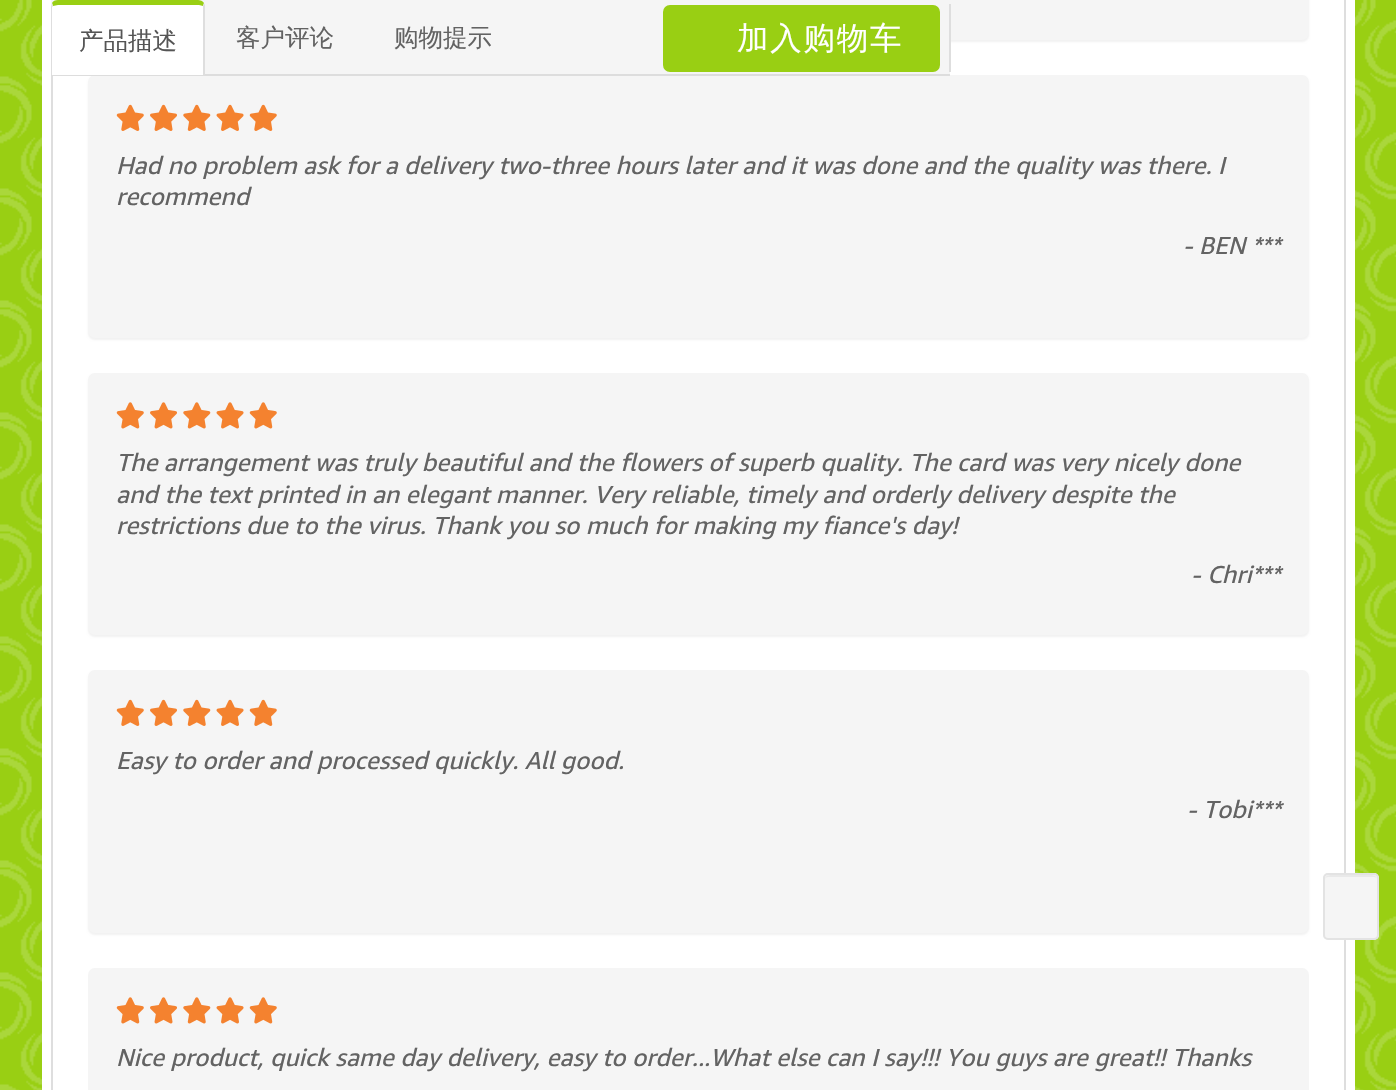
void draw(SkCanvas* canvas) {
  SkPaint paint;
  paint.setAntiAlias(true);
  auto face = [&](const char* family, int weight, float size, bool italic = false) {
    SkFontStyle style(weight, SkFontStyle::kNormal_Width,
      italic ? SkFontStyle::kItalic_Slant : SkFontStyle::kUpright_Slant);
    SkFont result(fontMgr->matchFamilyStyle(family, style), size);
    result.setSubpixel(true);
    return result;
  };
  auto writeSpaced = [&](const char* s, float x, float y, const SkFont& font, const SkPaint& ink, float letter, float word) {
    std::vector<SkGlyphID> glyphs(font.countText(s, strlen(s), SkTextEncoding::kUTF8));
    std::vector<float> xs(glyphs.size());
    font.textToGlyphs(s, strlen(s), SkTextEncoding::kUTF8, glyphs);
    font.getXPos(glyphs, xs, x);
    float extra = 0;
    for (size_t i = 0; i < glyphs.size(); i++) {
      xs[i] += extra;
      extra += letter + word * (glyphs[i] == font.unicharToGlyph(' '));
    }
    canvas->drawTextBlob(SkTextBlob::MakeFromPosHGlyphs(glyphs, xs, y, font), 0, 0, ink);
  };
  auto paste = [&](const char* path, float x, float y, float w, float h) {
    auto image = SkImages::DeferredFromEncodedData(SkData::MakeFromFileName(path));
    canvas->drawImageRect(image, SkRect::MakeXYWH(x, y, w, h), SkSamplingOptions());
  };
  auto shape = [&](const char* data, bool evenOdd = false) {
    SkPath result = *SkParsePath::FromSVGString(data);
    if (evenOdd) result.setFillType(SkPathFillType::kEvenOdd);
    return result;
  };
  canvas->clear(0xffffffff);
  paste("img/1.png", 0, 0, 1396, 1090);
  paint.setColor(0xffffffff);
  canvas->drawRect(SkRect::MakeXYWH(42, 0, 1313, 1090), paint);
  paint.setColor(0x0d000000);
  paint.setMaskFilter(SkMaskFilter::MakeBlur(kNormal_SkBlurStyle, 1));
  canvas->drawRoundRect(SkRect::MakeXYWH(88, -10, 1221, 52), 7, 7, paint);
  paint.setMaskFilter(nullptr);
  paint.setColor(0xfff5f5f5);
  canvas->drawRoundRect(SkRect::MakeXYWH(88, -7, 1221, 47), 7, 7, paint);
  paint.setColor(0x0d000000);
  paint.setMaskFilter(SkMaskFilter::MakeBlur(kNormal_SkBlurStyle, 1));
  canvas->drawRoundRect(SkRect::MakeXYWH(88, 77, 1221, 263), 7, 7, paint);
  paint.setMaskFilter(nullptr);
  paint.setColor(0xfff5f5f5);
  canvas->drawRect(SkRect::MakeXYWH(51, 0, 899, 74), paint);
  canvas->drawRoundRect(SkRect::MakeXYWH(88, 75, 1221, 263), 7, 7, paint);
  paint.setColor(0xffdddddd);
  canvas->drawRect(SkRect::MakeXYWH(51, 74, 899, 2), paint);
  paint.setColor(0xffffffff);
  canvas->drawPath(shape("M58 0H198C202 0 205 3 205 7V75H51V7C51 3 54 0 58 0Z"), paint);
  paint.setColor(0xff99cf13);
  canvas->drawPath(shape("M58 0H198C200 0 203 1 204 3L203 6L199 5H58L53 6L52 3C53 1 55 0 58 0Z"), paint);
  paint.setColor(0xffdedede);
  canvas->drawPath(shape("M205 5V75H203V6L204 3Z"), paint);
  canvas->drawPath(shape("M52 3L53 6L52 7V75H51V7Z"), paint);
  canvas->drawRect(SkRect::MakeXYWH(949, 4, 2, 68), paint);
  paint.setColor(0xff99cf13);
  canvas->drawRoundRect(SkRect::MakeXYWH(664, 6, 275, 65), 6, 6, paint);
  paint.setStroke(true);
  paint.setStrokeWidth(2);
  canvas->drawRoundRect(SkRect::MakeXYWH(664, 6, 275, 65), 6, 6, paint);
  paint.setStroke(false);
  paint.setColor(0xffdedede);
  canvas->drawRect(SkRect::MakeXYWH(1344, 0, 2, 1090), paint);
  canvas->drawRect(SkRect::MakeXYWH(51, 76, 2, 1014), paint);
  paste("img/2.png", 116, 104, 28, 27);
  paste("img/3.png", 150, 104, 27, 27);
  paste("img/4.png", 183, 104, 28, 27);
  paste("img/5.png", 216, 104, 28, 27);
  paste("img/2.png", 249, 104, 28, 27);
  paint.setColor(0x0d000000);
  paint.setMaskFilter(SkMaskFilter::MakeBlur(kNormal_SkBlurStyle, 1));
  canvas->drawRoundRect(SkRect::MakeXYWH(88, 375, 1221, 262), 7, 7, paint);
  paint.setMaskFilter(nullptr);
  paint.setColor(0xfff5f5f5);
  canvas->drawRoundRect(SkRect::MakeXYWH(88, 373, 1221, 262), 7, 7, paint);
  paste("img/6.png", 116, 402, 28, 27);
  paste("img/7.png", 150, 402, 27, 27);
  paste("img/8.png", 183, 402, 28, 27);
  paste("img/9.png", 216, 402, 28, 27);
  paste("img/6.png", 249, 402, 28, 27);
  paint.setColor(0x0d000000);
  paint.setMaskFilter(SkMaskFilter::MakeBlur(kNormal_SkBlurStyle, 1));
  canvas->drawRoundRect(SkRect::MakeXYWH(88, 672, 1221, 263), 7, 7, paint);
  paint.setMaskFilter(nullptr);
  paint.setColor(0xfff5f5f5);
  canvas->drawRoundRect(SkRect::MakeXYWH(88, 670, 1221, 263), 7, 7, paint);
  paste("img/2.png", 116, 699, 28, 27);
  paste("img/3.png", 150, 699, 27, 27);
  paste("img/4.png", 183, 699, 28, 27);
  paste("img/5.png", 216, 699, 28, 27);
  paste("img/2.png", 249, 699, 28, 27);
  canvas->drawRoundRect(SkRect::MakeXYWH(88, 968, 1221, 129), 7, 7, paint);
  paste("img/6.png", 116, 997, 28, 27);
  paste("img/7.png", 150, 997, 27, 27);
  paste("img/8.png", 183, 997, 28, 27);
  paste("img/9.png", 216, 997, 28, 27);
  paste("img/6.png", 249, 997, 28, 27);
  canvas->drawRoundRect(SkRect::MakeXYWH(1323, 873, 56, 67), 5, 5, paint);
  paint.setColor(0xffe9e9e9);
  canvas->drawPath(shape("M1328 877H1374C1376 877 1377 878 1377 880C1377 874 1371 875 1366 875H1336C1331 875 1325 874 1325 880C1325 878 1326 877 1328 877Z"), paint);
  paint.setStroke(true);
  paint.setColor(0xffe3e3e3);
  canvas->drawRoundRect(SkRect::MakeXYWH(1324, 874, 54, 65), 4, 4, paint);
  auto f0 = face("WenQuanYi Zen Hei", 500, 24.5f);
  paint.setStroke(false);
  paint.setColor(0xff555555);
  canvas->drawString("产品描述", 79, 49, f0, paint);
  paint.setColor(0xff636363);
  canvas->drawString("客户评论", 236, 46, f0, paint);
  canvas->drawString("购物提示", 394, 46, f0, paint);
  auto f1 = face("WenQuanYi Zen Hei", 500, 31.5f);
  paint.setColor(0xffffffff);
  writeSpaced("加入购物车", 737, 49, f1, paint, 1.75f, 0);
  auto f2 = face("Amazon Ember", 400, 24.5f, true);
  paint.setColor(0xff636363);
  {
    const struct { const char* s; float x, y; } items[] = {
      {"Had no problem ask for a delivery two-three hours later and it was done and the quality was there. I", 116, 174},
      {"recommend", 116, 205},
      {"- BEN ***", 1183, 254},
      {"The arrangement was truly beautiful and the flowers of superb quality. The card was very nicely done", 116, 471},
      {"and the text printed in an elegant manner. Very reliable, timely and orderly delivery despite the", 116, 503},
      {"restrictions due to the virus. Thank you so much for making my fiance's day!", 116, 534},
      {"- Chri***", 1191, 583},
      {"Easy to order and processed quickly. All good.", 116, 769},
      {"- Tobi***", 1187, 818},
      {"Nice product, quick same day delivery, easy to order...What else can I say!!! You guys are great!! Thanks", 116, 1066},
    };
    for (auto [s, x, y] : items) {
      canvas->drawString(s, x, y, f2, paint);
    }
  }
}
